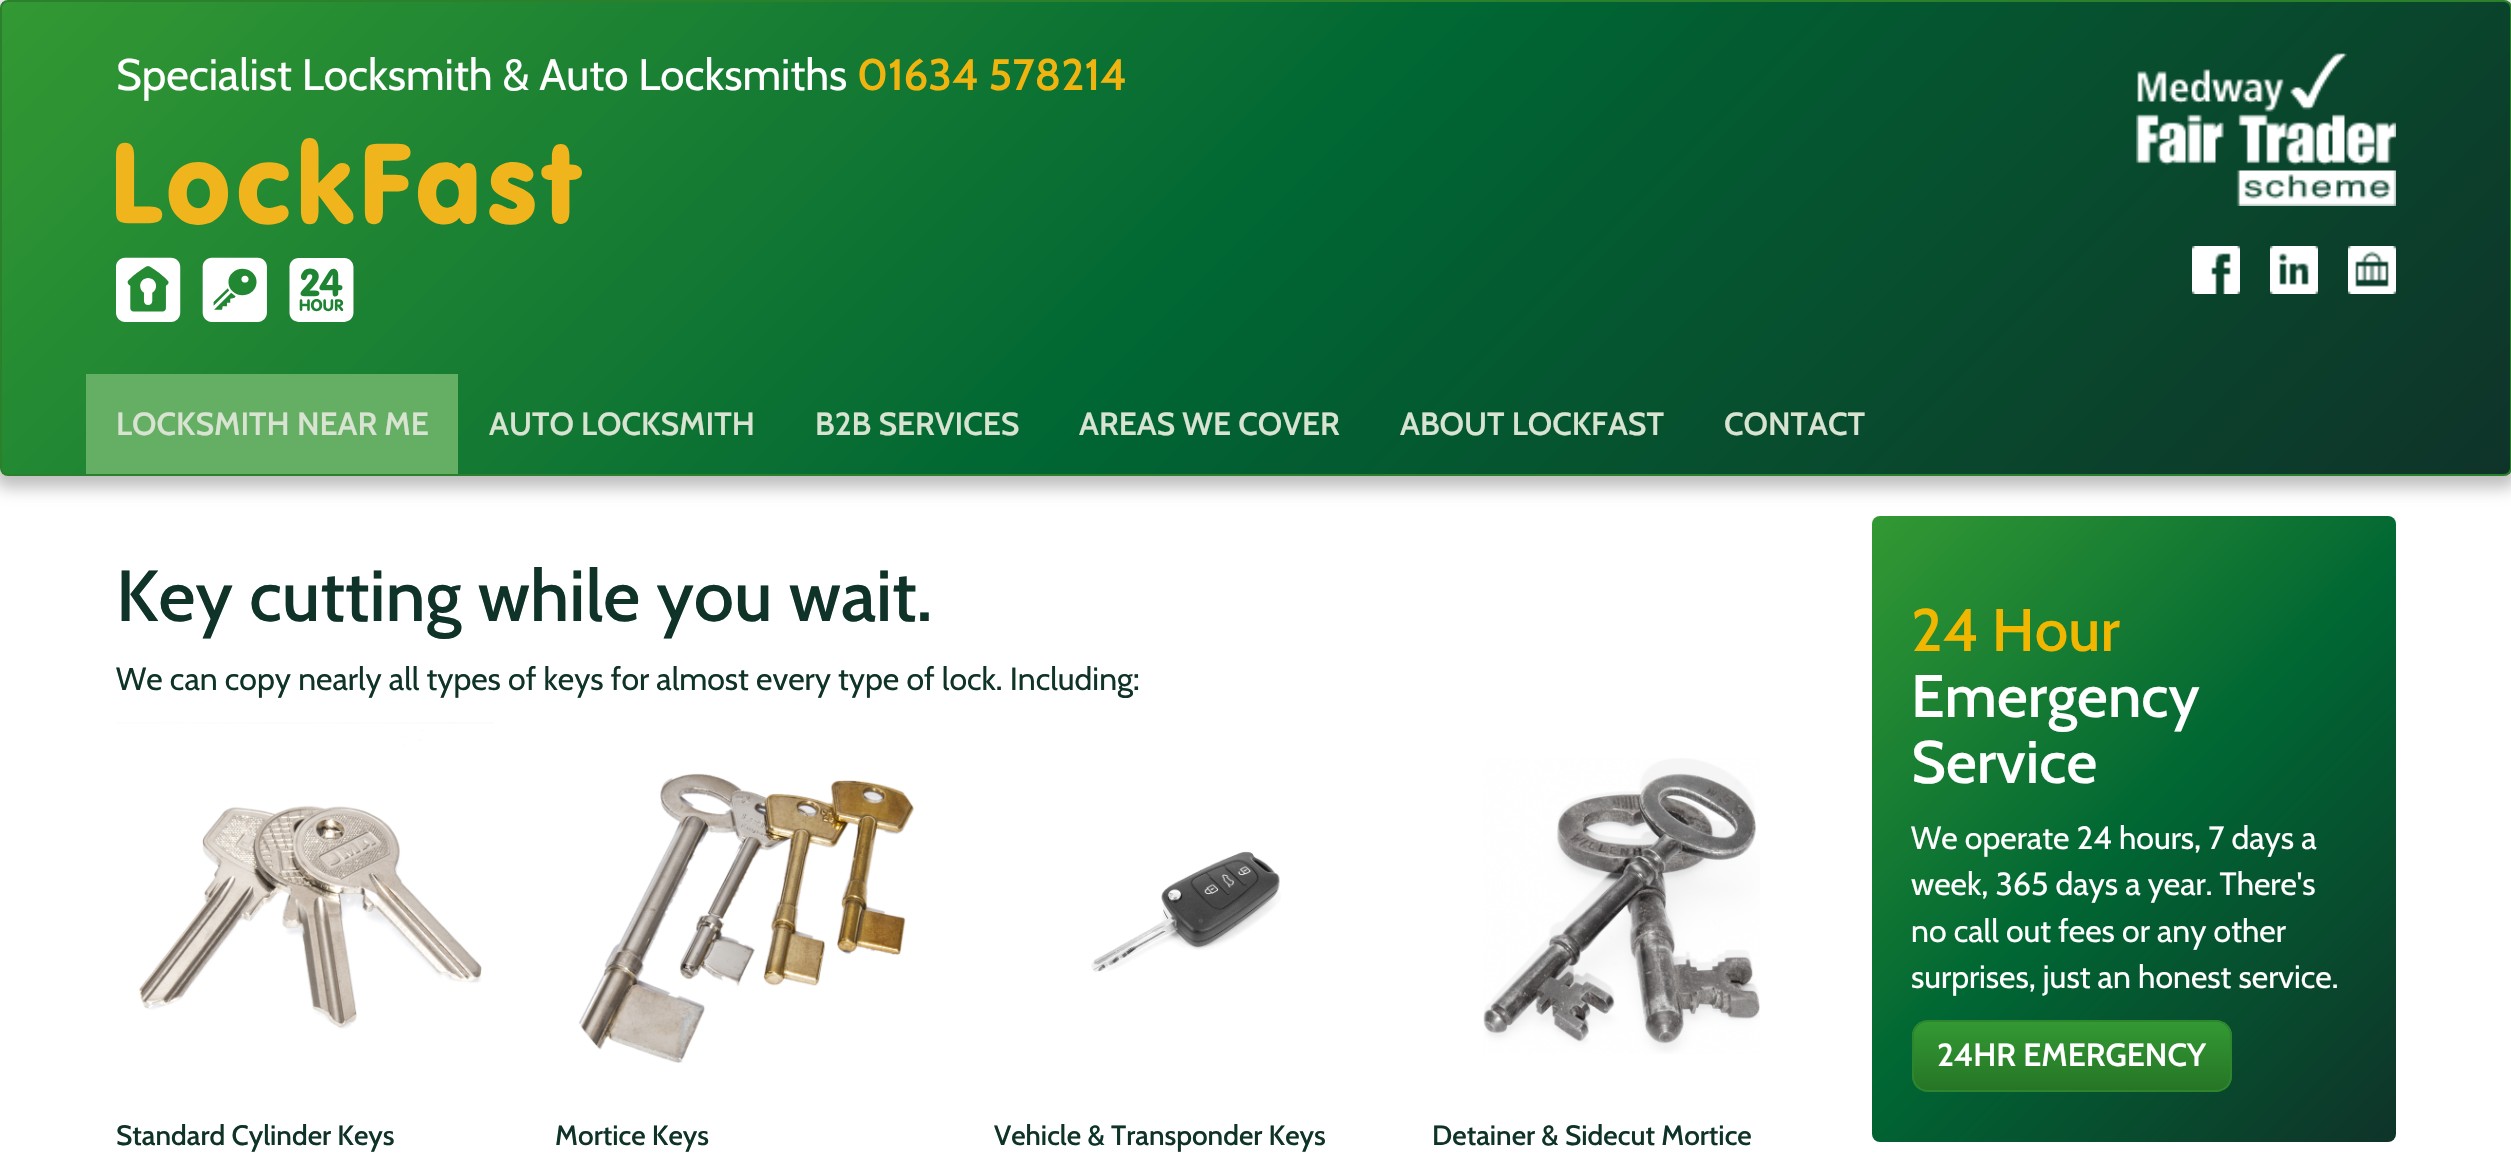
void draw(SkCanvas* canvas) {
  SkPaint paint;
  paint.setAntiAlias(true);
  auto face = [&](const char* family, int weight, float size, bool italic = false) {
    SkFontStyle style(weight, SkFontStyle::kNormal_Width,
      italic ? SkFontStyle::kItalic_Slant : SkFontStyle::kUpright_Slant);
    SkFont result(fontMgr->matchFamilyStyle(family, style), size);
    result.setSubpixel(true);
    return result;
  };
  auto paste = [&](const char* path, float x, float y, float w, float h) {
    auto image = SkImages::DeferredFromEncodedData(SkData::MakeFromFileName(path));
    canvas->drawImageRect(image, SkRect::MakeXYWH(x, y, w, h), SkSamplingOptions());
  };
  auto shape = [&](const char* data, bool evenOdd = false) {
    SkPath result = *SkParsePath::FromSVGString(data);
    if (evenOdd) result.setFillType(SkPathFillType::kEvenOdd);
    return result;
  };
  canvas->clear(0xffffffff);
  paint.setColor(0x40000000);
  paint.setMaskFilter(SkMaskFilter::MakeBlur(kNormal_SkBlurStyle, 8));
  canvas->drawRoundRect(SkRect::MakeXYWH(-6, 0, 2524, 488), 14, 14, paint);
  paint.setMaskFilter(nullptr);
  canvas->save();
  canvas->clipPath(shape("M8 0H2504C2508.5 0 2512 3.5 2512 8V468C2512 472.5 2508.5 476 2504 476H8C3.5 476 0 472.5 0 468V8C0 3.5 3.5 0 8 0Z"), true);
  {
    const SkColor colors[] = {0xff339933, 0xff006633, 0xff0f3329};
    const float stops[] = {0, 0.5f, 1};
    const SkPoint ends[] = {{511, -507}, {2001, 983}};
    paint.setShader(SkGradientShader::MakeLinear(ends, colors, stops, 3, SkTileMode::kClamp));
    paint.setAlpha(255);
  }
  canvas->drawRect(SkRect::MakeXYWH(2, 2, 2508, 472), paint);
  canvas->restore();
  paint.setStroke(true);
  paint.setStrokeWidth(2);
  paint.setShader(nullptr);
  paint.setColor(0xff2b802b);
  canvas->drawRoundRect(SkRect::MakeXYWH(1, 1, 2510, 474), 7, 7, paint);
  paste("img/1.png", 116, 138, 466, 184);
  paste("img/2.png", 2136, 53, 260, 153);
  paste("img/3.png", 2192, 246, 48, 48);
  paste("img/4.png", 2270, 246, 48, 48);
  paste("img/5.png", 2348, 246, 48, 48);
  paint.setStroke(false);
  paint.setColor(0xff65af65);
  canvas->drawRect(SkRect::MakeXYWH(86, 374, 372, 100), paint);
  paste("img/6.png", 116, 722, 378, 307);
  paste("img/7.png", 578, 773, 336, 290);
  paste("img/8.png", 1091, 851, 190, 121);
  paste("img/9.png", 1483, 758, 277, 296);
  {
    const SkColor colors[] = {0xff339933, 0xff006633, 0xff0f3329};
    const float stops[] = {0, 0.5f, 1};
    const SkPoint ends[] = {{1847, 542}, {2422, 1117}};
    paint.setShader(SkGradientShader::MakeLinear(ends, colors, stops, 3, SkTileMode::kClamp));
    paint.setAlpha(255);
  }
  canvas->drawRoundRect(SkRect::MakeXYWH(1872, 516, 524, 626), 8, 8, paint);
  canvas->save();
  canvas->clipPath(shape("M1928 1020H2216C2225 1020 2232 1027 2232 1036V1076C2232 1085 2225 1092 2216 1092H1928C1919 1092 1912 1085 1912 1076V1036C1912 1027 1919 1020 1928 1020Z"), true);
  {
    const SkColor colors[] = {0xff339933, 0xff267526};
    const float stops[] = {0, 1};
    const SkPoint ends[] = {{2072, 1022}, {2072, 1090}};
    paint.setShader(SkGradientShader::MakeLinear(ends, colors, stops, 2, SkTileMode::kClamp));
    paint.setAlpha(255);
  }
  canvas->drawRect(SkRect::MakeXYWH(1912, 1022, 320, 68), paint);
  canvas->restore();
  paint.setStroke(true);
  paint.setShader(nullptr);
  paint.setColor(0xff2d862d);
  canvas->drawRoundRect(SkRect::MakeXYWH(1913, 1021, 318, 70), 15, 15, paint);
  auto f0 = face("Cabin", 400, 44);
  paint.setStroke(false);
  paint.setColor(0xffffffff);
  canvas->drawString("Specialist Locksmith & Auto Locksmiths", 116, 90, f0, paint);
  auto f1 = face("Cabin", 600, 44);
  paint.setColor(0xfff0b410);
  canvas->drawString("01634 578214", 857, 90, f1, paint);
  auto f2 = face("Cabin", 600, 32);
  paint.setColor(0xffd8e4d1);
  {
    const struct { const char* s; float x, y; } items[] = {
      {"LOCKSMITH NEAR ME", 116, 435},
      {"AUTO LOCKSMITH", 489, 435},
      {"B2B SERVICES", 815, 435},
      {"AREAS WE COVER", 1079, 435},
      {"ABOUT LOCKFAST", 1400, 435},
      {"CONTACT", 1724, 435},
    };
    for (auto [s, x, y] : items) {
      canvas->drawString(s, x, y, f2, paint);
    }
  }
  auto f3 = face("Cabin", 500, 72);
  paint.setColor(0xff0f3329);
  canvas->drawString("Key cutting while you wait.", 116, 621, f3, paint);
  auto f4 = face("Cabin", 400, 32);
  canvas->drawString("We can copy nearly all types of keys for almost every type of lock. Including:", 116, 690, f4, paint);
  auto f5 = face("Cabin", 500, 28);
  {
    const struct { const char* s; float x, y; } items[] = {
      {"Standard Cylinder Keys", 116, 1145},
      {"Mortice Keys", 555, 1145},
      {"Vehicle & Transponder Keys", 994, 1145},
      {"Detainer & Sidecut Mortice", 1432, 1145},
    };
    for (auto [s, x, y] : items) {
      canvas->drawString(s, x, y, f5, paint);
    }
  }
  auto f6 = face("Cabin", 500, 60);
  paint.setColor(0xfff1b700);
  canvas->drawString("24 Hour", 1911, 651, f6, paint);
  paint.setColor(0xffffffff);
  canvas->drawString("Emergency", 1911, 717, f6, paint);
  canvas->drawString("Service", 1911, 783, f6, paint);
  {
    const struct { const char* s; float x, y; } items[] = {
      {"We operate 24 hours, 7 days a", 1911, 849},
      {"week, 365 days a year. There's", 1911, 895},
      {"no call out fees or any other", 1911, 942},
      {"surprises, just an honest service.", 1911, 988},
    };
    for (auto [s, x, y] : items) {
      canvas->drawString(s, x, y, f4, paint);
    }
  }
  canvas->drawString("24HR EMERGENCY", 1937, 1066, f2, paint);
}
